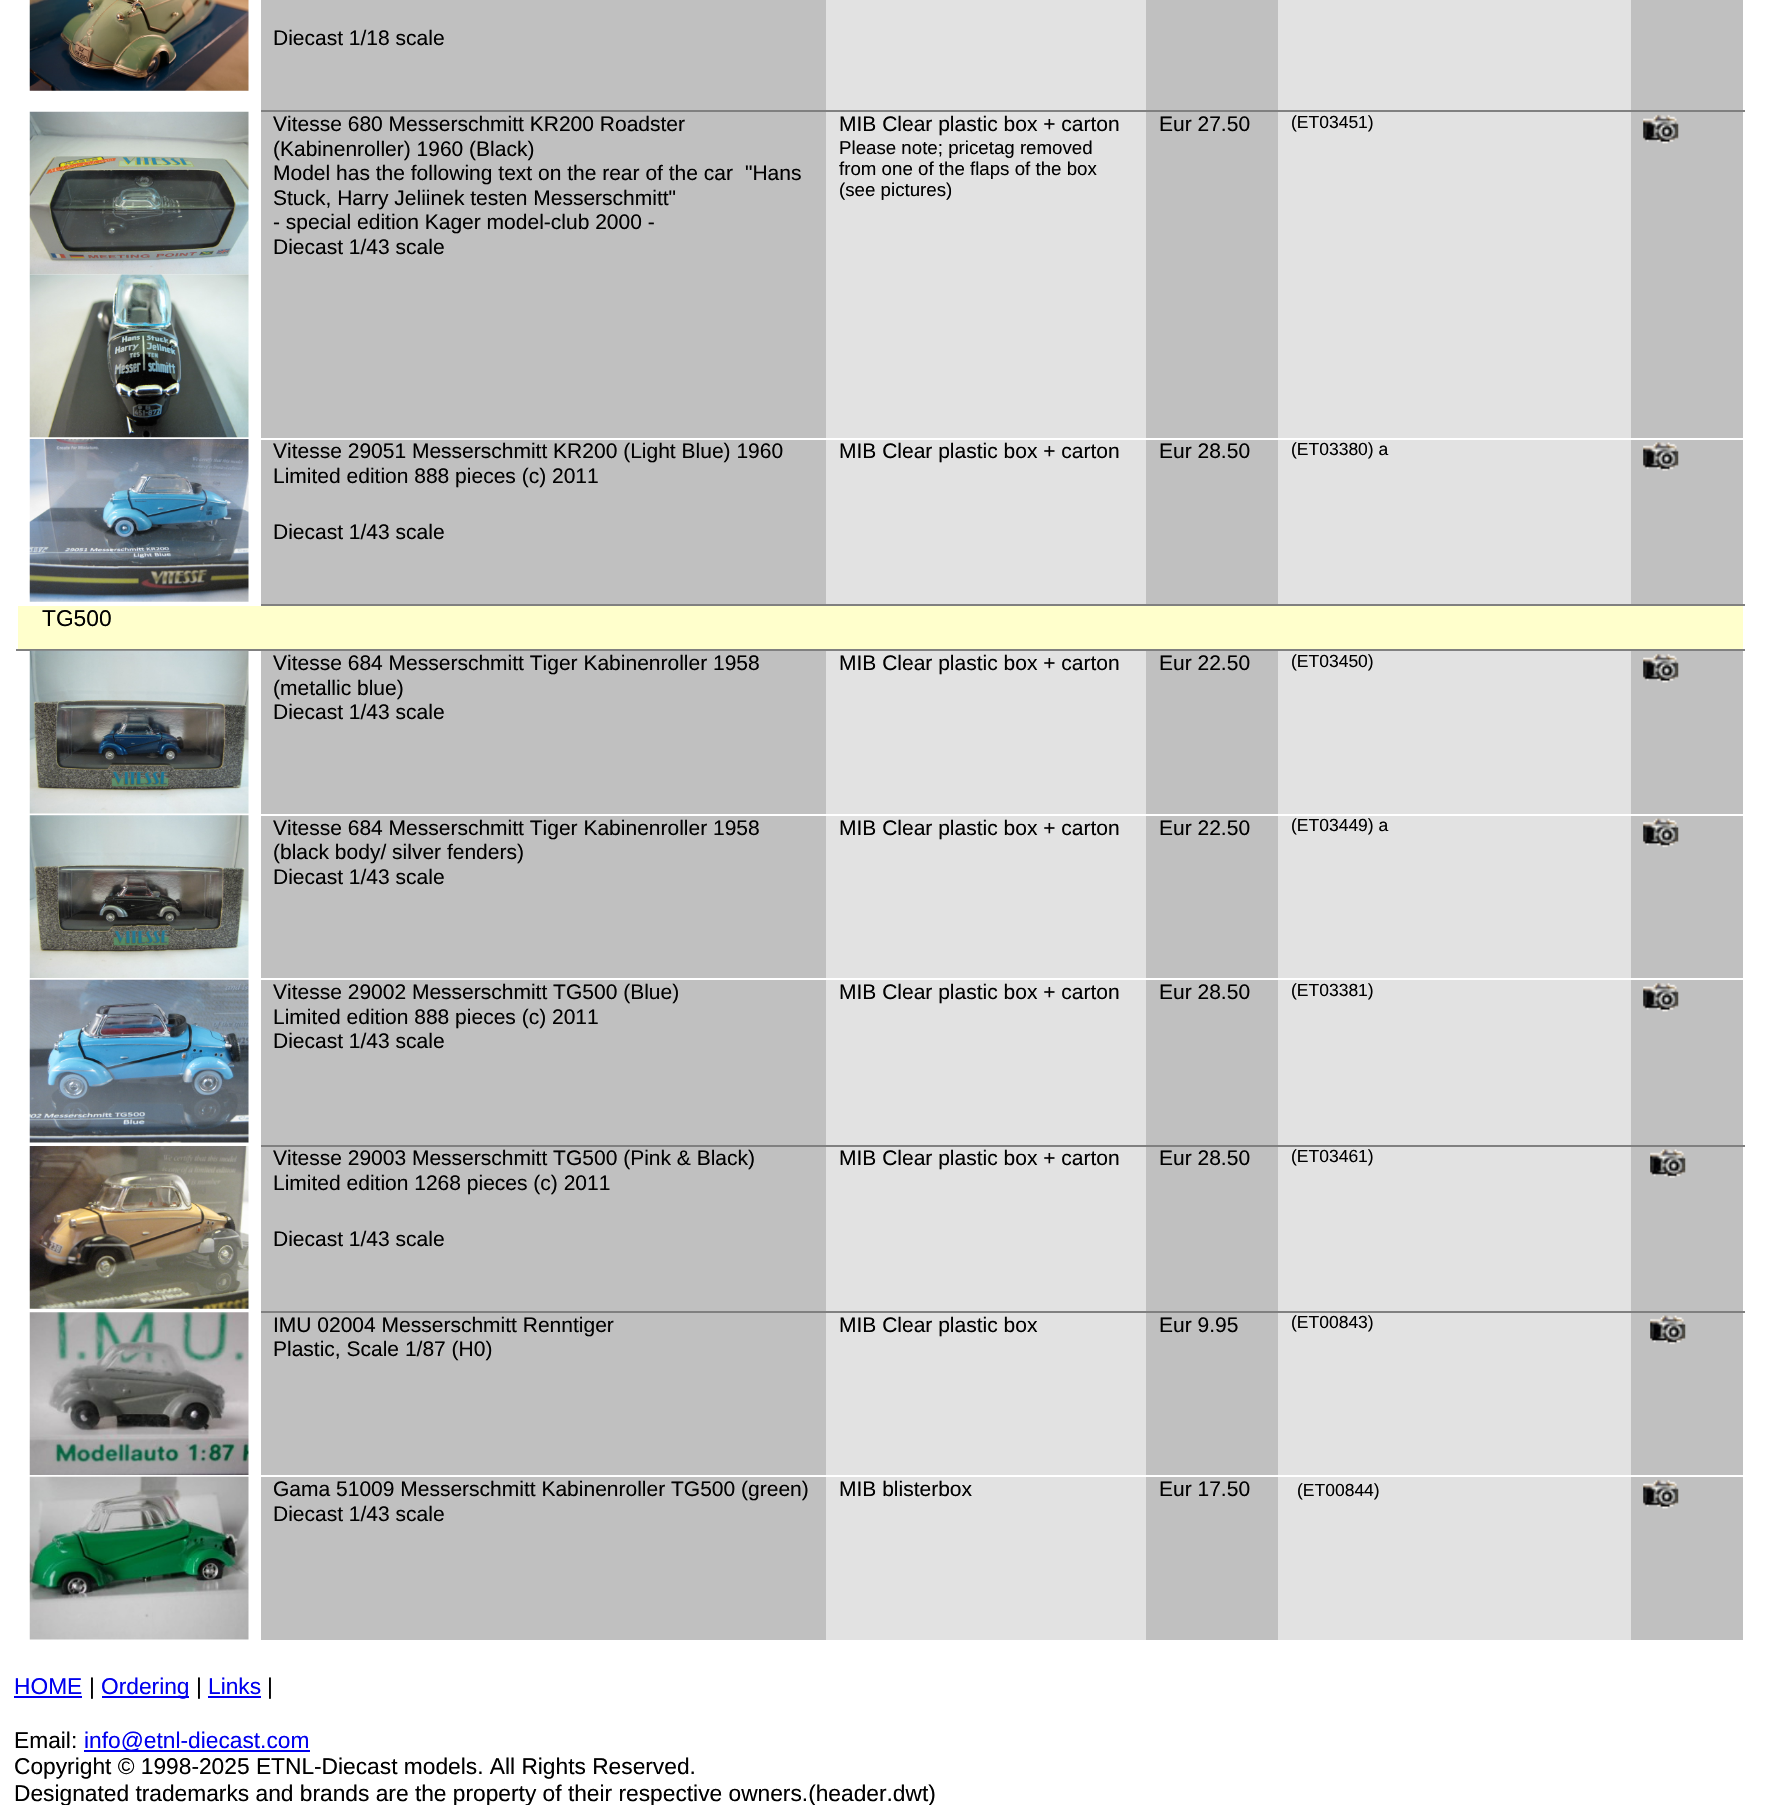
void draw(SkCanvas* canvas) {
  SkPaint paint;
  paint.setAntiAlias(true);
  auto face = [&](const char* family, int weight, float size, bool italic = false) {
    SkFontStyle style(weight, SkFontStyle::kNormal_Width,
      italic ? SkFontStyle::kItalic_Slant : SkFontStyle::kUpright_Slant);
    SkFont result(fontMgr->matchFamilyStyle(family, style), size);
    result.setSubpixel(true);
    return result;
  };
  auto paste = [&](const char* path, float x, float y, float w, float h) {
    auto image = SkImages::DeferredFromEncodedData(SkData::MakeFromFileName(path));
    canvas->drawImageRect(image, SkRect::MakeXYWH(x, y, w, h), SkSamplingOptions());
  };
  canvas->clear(0xffffffff);
  {
    const struct { float x, y, w, h; SkColor color; } items[] = {
      {826, 0, 805, 1640, 0xffe2e2e2},
      {259, 110, 1486, 2, 0xff808080},
      {259, 110, 2, 2, 0xffffffff},
    };
    for (auto [x, y, w, h, color] : items) {
      paint.setColor(color);
      canvas->drawRect(SkRect::MakeXYWH(x, y, w, h), paint);
    }
  }
  paste("img/1.png", 29, 0, 220, 91);
  {
    const struct { float x, y, w, h; SkColor color; } items[] = {
      {1631, 0, 112, 110, 0xffc0c0c0},
      {261, 0, 565, 110, 0xffc0c0c0},
      {1146, 0, 132, 110, 0xffc0c0c0},
    };
    for (auto [x, y, w, h, color] : items) {
      paint.setColor(color);
      canvas->drawRect(SkRect::MakeXYWH(x, y, w, h), paint);
    }
  }
  paste("img/2.png", 29, 111, 220, 164);
  paste("img/3.png", 29, 274, 220, 164);
  {
    const struct { float x, y, w, h; SkColor color; } items[] = {
      {261, 112, 565, 326, 0xffc0c0c0},
      {1631, 112, 112, 326, 0xffc0c0c0},
      {826, 438, 805, 2, 0xffffffff},
    };
    for (auto [x, y, w, h, color] : items) {
      paint.setColor(color);
      canvas->drawRect(SkRect::MakeXYWH(x, y, w, h), paint);
    }
  }
  paste("img/4.png", 1643, 114, 36, 30);
  {
    const struct { float x, y, w, h; SkColor color; } items[] = {
      {1146, 112, 132, 326, 0xffc0c0c0},
      {259, 604, 1486, 2, 0xff808080},
      {259, 604, 2, 2, 0xffffffff},
    };
    for (auto [x, y, w, h, color] : items) {
      paint.setColor(color);
      canvas->drawRect(SkRect::MakeXYWH(x, y, w, h), paint);
    }
  }
  paste("img/5.png", 29, 439, 220, 163);
  paint.setColor(0xffc0c0c0);
  canvas->drawRect(SkRect::MakeXYWH(1631, 440, 112, 164), paint);
  paste("img/6.png", 1643, 442, 36, 29);
  {
    const struct { float x, y, w, h; SkColor color; } items[] = {
      {261, 440, 565, 164, 0xffc0c0c0},
      {1146, 440, 132, 164, 0xffc0c0c0},
      {18, 606, 1725, 43, 0xffffffcc},
      {16, 649, 1729, 2, 0xff808080},
    };
    for (auto [x, y, w, h, color] : items) {
      paint.setColor(color);
      canvas->drawRect(SkRect::MakeXYWH(x, y, w, h), paint);
    }
  }
  paste("img/7.png", 29, 650, 220, 164);
  {
    const struct { float x, y, w, h; SkColor color; } items[] = {
      {261, 651, 565, 163, 0xffc0c0c0},
      {1631, 651, 112, 163, 0xffc0c0c0},
      {826, 814, 805, 2, 0xffffffff},
    };
    for (auto [x, y, w, h, color] : items) {
      paint.setColor(color);
      canvas->drawRect(SkRect::MakeXYWH(x, y, w, h), paint);
    }
  }
  paste("img/4.png", 1643, 653, 36, 30);
  paint.setColor(0xffc0c0c0);
  canvas->drawRect(SkRect::MakeXYWH(1146, 651, 132, 163), paint);
  paste("img/8.png", 29, 815, 220, 163);
  canvas->drawRect(SkRect::MakeXYWH(1631, 816, 112, 162), paint);
  paint.setColor(0xffffffff);
  canvas->drawRect(SkRect::MakeXYWH(826, 978, 805, 2), paint);
  paste("img/9.png", 1643, 818, 36, 30);
  {
    const struct { float x, y, w, h; SkColor color; } items[] = {
      {261, 816, 565, 162, 0xffc0c0c0},
      {1146, 816, 132, 162, 0xffc0c0c0},
      {259, 1145, 1486, 2, 0xff808080},
      {259, 1145, 2, 2, 0xffffffff},
    };
    for (auto [x, y, w, h, color] : items) {
      paint.setColor(color);
      canvas->drawRect(SkRect::MakeXYWH(x, y, w, h), paint);
    }
  }
  paste("img/10.png", 29, 979, 220, 164);
  paint.setColor(0xffc0c0c0);
  canvas->drawRect(SkRect::MakeXYWH(1631, 980, 112, 165), paint);
  paste("img/4.png", 1643, 982, 36, 30);
  {
    const struct { float x, y, w, h; SkColor color; } items[] = {
      {261, 980, 565, 165, 0xffc0c0c0},
      {1146, 980, 132, 165, 0xffc0c0c0},
      {259, 1311, 1486, 2, 0xff808080},
      {259, 1311, 2, 2, 0xffffffff},
    };
    for (auto [x, y, w, h, color] : items) {
      paint.setColor(color);
      canvas->drawRect(SkRect::MakeXYWH(x, y, w, h), paint);
    }
  }
  paste("img/11.png", 29, 1146, 220, 163);
  paint.setColor(0xffc0c0c0);
  canvas->drawRect(SkRect::MakeXYWH(1631, 1147, 112, 164), paint);
  paste("img/6.png", 1650, 1149, 36, 29);
  canvas->drawRect(SkRect::MakeXYWH(261, 1147, 565, 164), paint);
  canvas->drawRect(SkRect::MakeXYWH(1146, 1147, 132, 164), paint);
  paste("img/12.png", 29, 1312, 220, 163);
  canvas->drawRect(SkRect::MakeXYWH(1631, 1313, 112, 162), paint);
  paint.setColor(0xffffffff);
  canvas->drawRect(SkRect::MakeXYWH(826, 1475, 805, 2), paint);
  paste("img/9.png", 1650, 1315, 36, 30);
  paint.setColor(0xffc0c0c0);
  canvas->drawRect(SkRect::MakeXYWH(261, 1313, 565, 162), paint);
  canvas->drawRect(SkRect::MakeXYWH(1146, 1313, 132, 162), paint);
  paste("img/13.png", 29, 1476, 220, 164);
  {
    const struct { float x, y, w, h; SkColor color; } items[] = {
      {261, 1477, 565, 163, 0xffc0c0c0},
      {1146, 1477, 132, 163, 0xffc0c0c0},
      {1631, 1477, 112, 163, 0xffc0c0c0},
    };
    for (auto [x, y, w, h, color] : items) {
      paint.setColor(color);
      canvas->drawRect(SkRect::MakeXYWH(x, y, w, h), paint);
    }
  }
  paste("img/4.png", 1643, 1479, 36, 30);
  {
    const struct { float x, y, w, h; SkColor color; } items[] = {
      {14, 1696, 68, 2, 0xff0000ee},
      {102, 1696, 87, 2, 0xff0000ee},
      {208, 1696, 53, 2, 0xff0000ee},
      {84, 1750, 175, 2, 0xff0000ee},
      {259, 1750, 51, 2, 0xff0000ee},
    };
    for (auto [x, y, w, h, color] : items) {
      paint.setColor(color);
      canvas->drawRect(SkRect::MakeXYWH(x, y, w, h), paint);
    }
  }
  auto f0 = face("Liberation Sans", 400, 21);
  paint.setColor(0xff000000);
  {
    const struct { const char* s; float x, y; } items[] = {
      {"Diecast 1/18 scale", 273, 45},
      {"Vitesse 680 Messerschmitt KR200 Roadster", 273, 131},
      {"(Kabinenroller) 1960 (Black)", 273, 156},
      {"Model has the following text on the rear of the car", 273, 180},
      {"\"Hans", 745, 180},
      {"Stuck, Harry Jeliinek testen Messerschmitt\"", 273, 205},
      {"- special edition Kager model-club 2000 -", 273, 229},
      {"Diecast 1/43 scale", 273, 254},
      {"MIB Clear plastic box + carton", 839, 131},
    };
    for (auto [s, x, y] : items) {
      canvas->drawString(s, x, y, f0, paint);
    }
  }
  auto f1 = face("Liberation Sans", 400, 18.7f);
  {
    const struct { const char* s; float x, y; } items[] = {
      {"Please note; pricetag removed", 839, 154},
      {"from one of the flaps of the box", 839, 175},
      {"(see pictures)", 839, 196},
    };
    for (auto [s, x, y] : items) {
      canvas->drawString(s, x, y, f1, paint);
    }
  }
  canvas->drawString("Eur 27.50", 1159, 131, f0, paint);
  auto f2 = face("Liberation Sans", 400, 17.5f);
  canvas->drawString("(ET03451)", 1291, 128, f2, paint);
  {
    const struct { const char* s; float x, y; } items[] = {
      {"Vitesse 29051 Messerschmitt KR200 (Light Blue) 1960", 273, 458},
      {"Limited edition 888 pieces (c) 2011", 273, 483},
      {"Diecast 1/43 scale", 273, 539},
      {"MIB Clear plastic box + carton", 839, 458},
      {"Eur 28.50", 1159, 458},
    };
    for (auto [s, x, y] : items) {
      canvas->drawString(s, x, y, f0, paint);
    }
  }
  canvas->drawString("(ET03380) a", 1291, 455, f2, paint);
  auto f3 = face("Liberation Sans", 400, 22.75f);
  canvas->drawString("TG500", 42, 626, f3, paint);
  {
    const struct { const char* s; float x, y; } items[] = {
      {"Vitesse 684 Messerschmitt Tiger Kabinenroller 1958", 273, 670},
      {"(metallic blue)", 273, 695},
      {"Diecast 1/43 scale", 273, 719},
      {"MIB Clear plastic box + carton", 839, 670},
      {"Eur 22.50", 1159, 670},
    };
    for (auto [s, x, y] : items) {
      canvas->drawString(s, x, y, f0, paint);
    }
  }
  canvas->drawString("(ET03450)", 1291, 667, f2, paint);
  {
    const struct { const char* s; float x, y; } items[] = {
      {"Vitesse 684 Messerschmitt Tiger Kabinenroller 1958", 273, 835},
      {"(black body/ silver fenders)", 273, 859},
      {"Diecast 1/43 scale", 273, 884},
      {"MIB Clear plastic box + carton", 839, 835},
      {"Eur 22.50", 1159, 835},
    };
    for (auto [s, x, y] : items) {
      canvas->drawString(s, x, y, f0, paint);
    }
  }
  canvas->drawString("(ET03449) a", 1291, 831, f2, paint);
  {
    const struct { const char* s; float x, y; } items[] = {
      {"Vitesse 29002 Messerschmitt TG500 (Blue)", 273, 999},
      {"Limited edition 888 pieces (c) 2011", 273, 1024},
      {"Diecast 1/43 scale", 273, 1048},
      {"MIB Clear plastic box + carton", 839, 999},
      {"Eur 28.50", 1159, 999},
    };
    for (auto [s, x, y] : items) {
      canvas->drawString(s, x, y, f0, paint);
    }
  }
  canvas->drawString("(ET03381)", 1291, 996, f2, paint);
  {
    const struct { const char* s; float x, y; } items[] = {
      {"Vitesse 29003 Messerschmitt TG500 (Pink & Black)", 273, 1165},
      {"Limited edition 1268 pieces (c) 2011", 273, 1190},
      {"Diecast 1/43 scale", 273, 1246},
      {"MIB Clear plastic box + carton", 839, 1165},
      {"Eur 28.50", 1159, 1165},
    };
    for (auto [s, x, y] : items) {
      canvas->drawString(s, x, y, f0, paint);
    }
  }
  canvas->drawString("(ET03461)", 1291, 1162, f2, paint);
  {
    const struct { const char* s; float x, y; } items[] = {
      {"IMU 02004 Messerschmitt Renntiger", 273, 1332},
      {"Plastic, Scale 1/87 (H0)", 273, 1356},
      {"MIB Clear plastic box", 839, 1332},
      {"Eur 9.95", 1159, 1332},
    };
    for (auto [s, x, y] : items) {
      canvas->drawString(s, x, y, f0, paint);
    }
  }
  canvas->drawString("(ET00843)", 1291, 1328, f2, paint);
  {
    const struct { const char* s; float x, y; } items[] = {
      {"Gama 51009 Messerschmitt Kabinenroller TG500 (green)", 273, 1496},
      {"Diecast 1/43 scale", 273, 1521},
      {"MIB blisterbox", 839, 1496},
      {"Eur 17.50", 1159, 1496},
    };
    for (auto [s, x, y] : items) {
      canvas->drawString(s, x, y, f0, paint);
    }
  }
  canvas->drawString("(ET00844)", 1297, 1496, f2, paint);
  paint.setColor(0xff0000ee);
  canvas->drawString("HOME", 14, 1694, f3, paint);
  paint.setColor(0xff000000);
  canvas->drawString("|", 89, 1694, f3, paint);
  paint.setColor(0xff0000ee);
  canvas->drawString("Ordering", 101, 1694, f3, paint);
  paint.setColor(0xff000000);
  canvas->drawString("|", 196, 1694, f3, paint);
  paint.setColor(0xff0000ee);
  canvas->drawString("Links", 208, 1694, f3, paint);
  paint.setColor(0xff000000);
  canvas->drawString("|", 267, 1694, f3, paint);
  canvas->drawString("Email:", 14, 1748, f3, paint);
  paint.setColor(0xff0000ee);
  canvas->drawString("info@etnl-diecast.com", 84, 1748, f3, paint);
  paint.setColor(0xff000000);
  canvas->drawString("Copyright © 1998-2025 ETNL-Diecast models. All Rights Reserved.", 14, 1774, f3, paint);
  canvas->drawString("Designated trademarks and brands are the property of their respective owners.(header.dwt)", 14, 1801, f3, paint);
}
